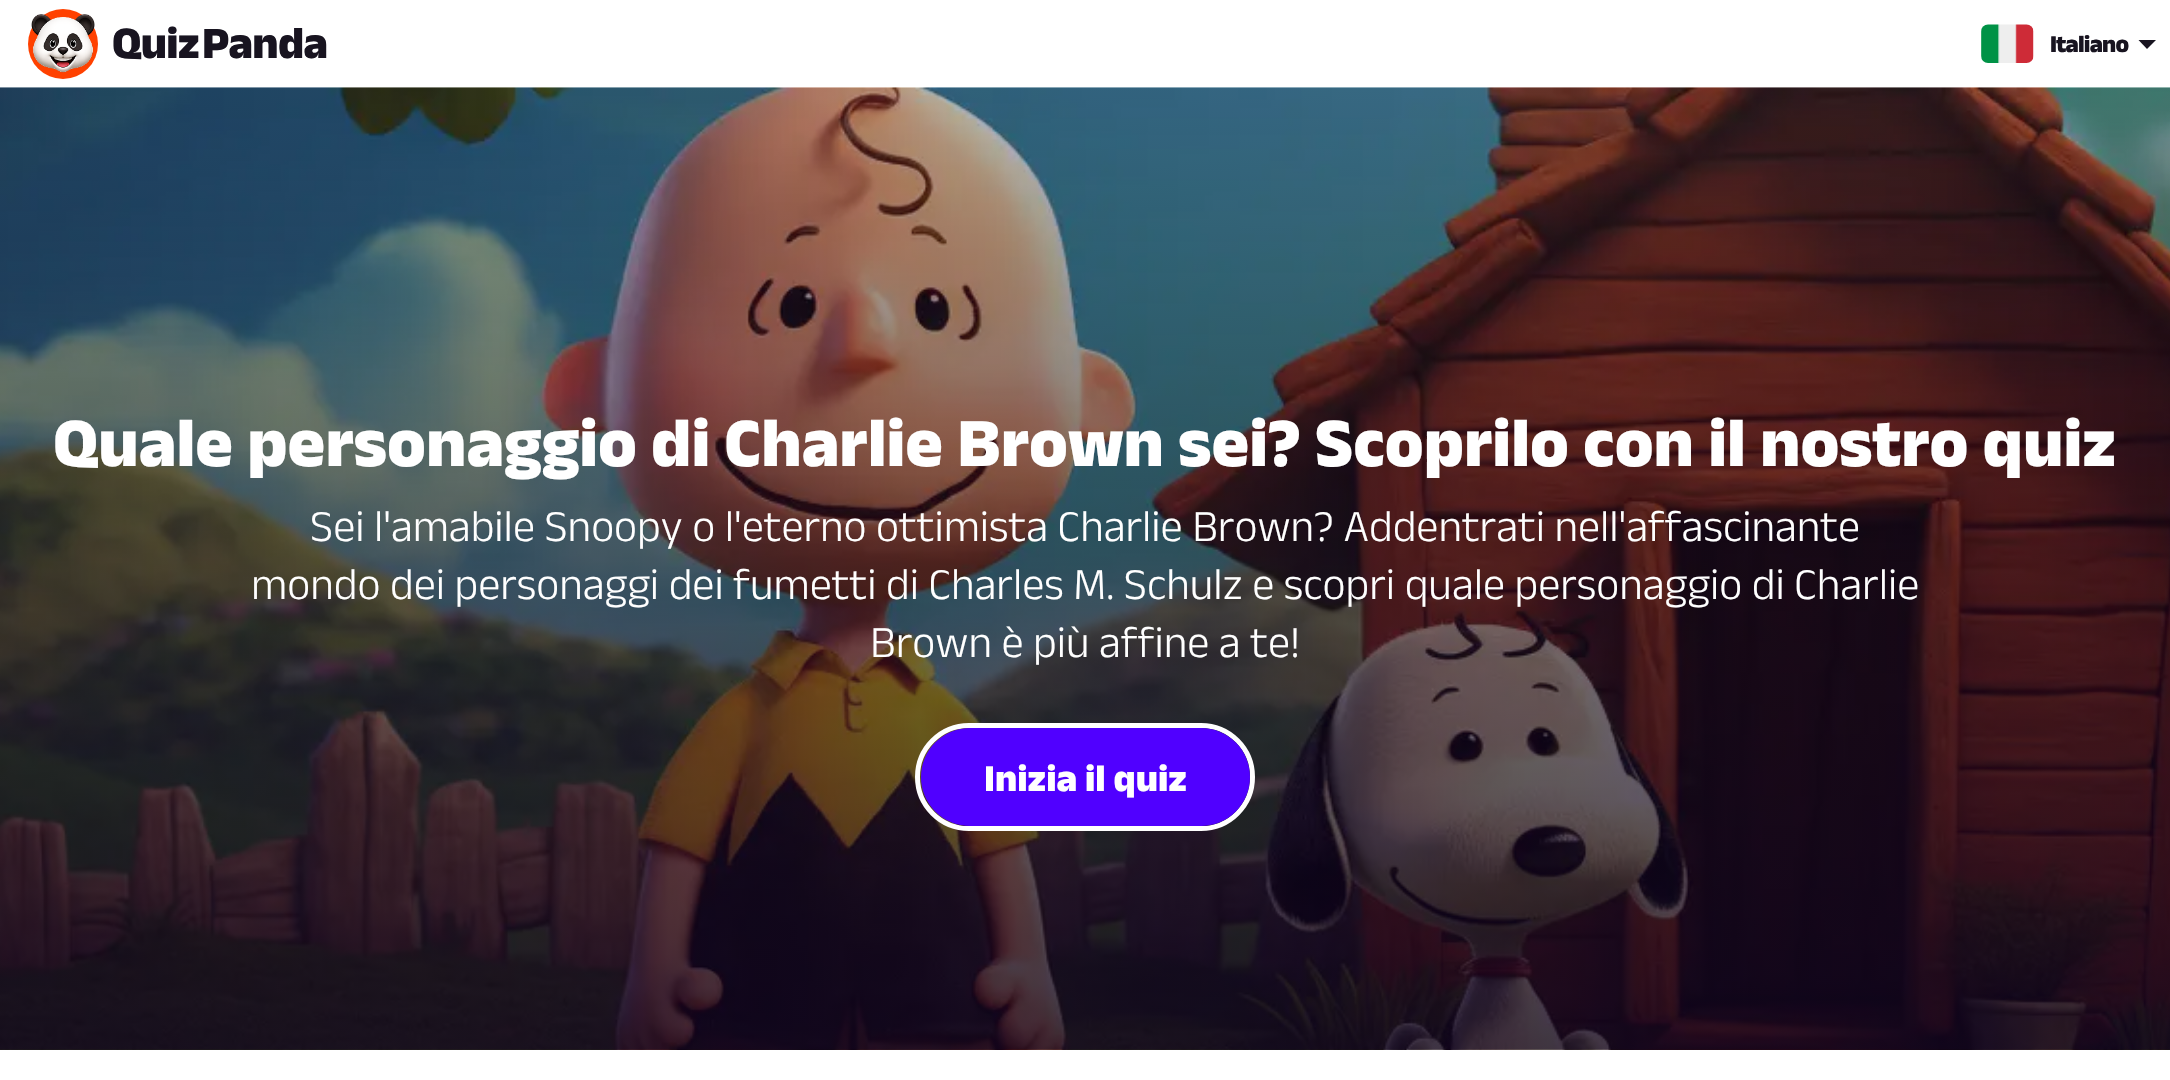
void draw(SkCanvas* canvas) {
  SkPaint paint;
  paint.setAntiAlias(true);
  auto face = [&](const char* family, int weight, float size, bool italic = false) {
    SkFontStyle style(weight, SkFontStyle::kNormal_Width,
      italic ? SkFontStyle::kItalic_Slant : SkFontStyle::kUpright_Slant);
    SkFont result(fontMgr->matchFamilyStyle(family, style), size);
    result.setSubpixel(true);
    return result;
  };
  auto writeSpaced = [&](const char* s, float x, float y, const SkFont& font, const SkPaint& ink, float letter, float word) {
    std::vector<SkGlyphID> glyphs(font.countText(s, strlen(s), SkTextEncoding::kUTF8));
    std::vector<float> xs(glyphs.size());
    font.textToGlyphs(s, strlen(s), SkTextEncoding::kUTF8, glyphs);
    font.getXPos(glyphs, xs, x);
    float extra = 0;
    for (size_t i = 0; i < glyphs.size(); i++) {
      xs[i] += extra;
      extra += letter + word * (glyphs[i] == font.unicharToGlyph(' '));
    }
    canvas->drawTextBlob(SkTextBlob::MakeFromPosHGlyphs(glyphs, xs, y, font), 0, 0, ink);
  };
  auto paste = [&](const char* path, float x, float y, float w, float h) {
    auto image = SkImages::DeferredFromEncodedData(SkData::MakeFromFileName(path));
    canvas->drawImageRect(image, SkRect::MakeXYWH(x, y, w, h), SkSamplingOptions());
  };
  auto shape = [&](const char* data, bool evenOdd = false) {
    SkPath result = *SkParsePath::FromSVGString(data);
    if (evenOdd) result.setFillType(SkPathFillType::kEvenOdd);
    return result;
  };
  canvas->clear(0xffffffff);
  paint.setColor(0xffff4100);
  canvas->drawCircle(63, 44, 35, paint);
  paste("img/1.png", 31, 14, 64, 59);
  paste("img/2.png", 1981, 24, 53, 39);
  paint.setColor(0xff181420);
  canvas->drawPath(shape("M2138.5 40H2156L2147 49Z"), paint);
  paste("img/3.png", 0, 87, 2170, 963);
  paint.setStroke(true);
  paint.setStrokeWidth(5);
  paint.setColor(0xffffffff);
  canvas->drawRoundRect(SkRect::MakeXYWH(917.5f, 725.5f, 335, 103), 51.5f, 51.5f, paint);
  paint.setStroke(false);
  paint.setColor(0xff5000ff);
  canvas->drawRoundRect(SkRect::MakeXYWH(921, 728, 329, 98), 49, 49, paint);
  auto f0 = face("Anek Latin", 800, 45.5f);
  paint.setColor(0xff181420);
  writeSpaced("Quiz", 112, 58, f0, paint, -0.75f, 0);
  writeSpaced("Panda", 202, 58, f0, paint, -0.75f, 0);
  auto f1 = face("Anek Latin", 800, 24.5f);
  writeSpaced("Italiano", 2050, 52, f1, paint, -0.75f, 0);
  auto f2 = face("Anek Latin", 800, 70);
  paint.setColor(0xffffffff);
  canvas->drawString("Quale personaggio di Charlie Brown sei? Scoprilo con il nostro quiz", 53, 466, f2, paint);
  auto f3 = face("Anek Latin", 300, 44.8f);
  {
    const struct { const char* s; float x, y; } items[] = {
      {"Sei l'amabile Snoopy o l'eterno ottimista Charlie Brown? Addentrati nell'affascinante", 310, 541},
      {"mondo dei personaggi dei fumetti di Charles M. Schulz e scopri quale personaggio di Charlie", 251, 599},
      {"Brown è più affine a te!", 870, 657},
    };
    for (auto [s, x, y] : items) {
      canvas->drawString(s, x, y, f3, paint);
    }
  }
  auto f4 = face("Anek Latin", 800, 38.5f);
  canvas->drawString("Inizia il quiz", 984, 791, f4, paint);
}
